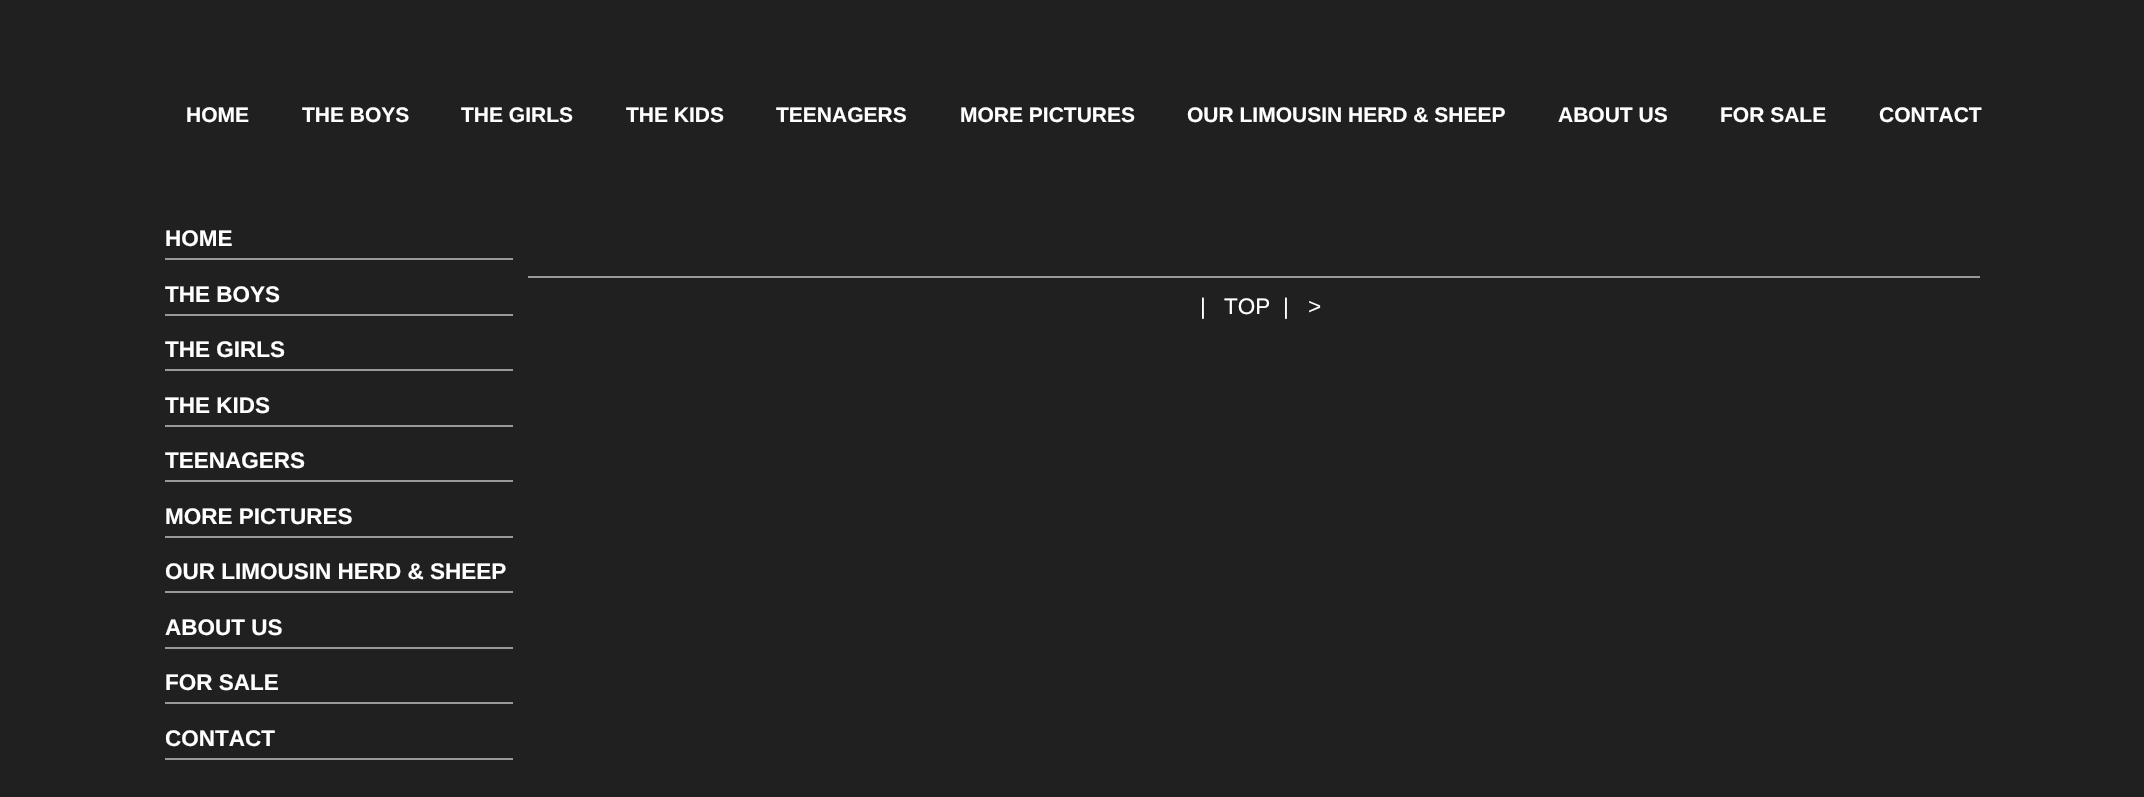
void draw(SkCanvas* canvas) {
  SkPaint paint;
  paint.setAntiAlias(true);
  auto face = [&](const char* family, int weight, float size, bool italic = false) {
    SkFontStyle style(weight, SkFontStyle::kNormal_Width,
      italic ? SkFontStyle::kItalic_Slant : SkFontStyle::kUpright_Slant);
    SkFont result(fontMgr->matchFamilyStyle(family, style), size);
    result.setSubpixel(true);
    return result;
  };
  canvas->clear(0xff202020);
  {
    const struct { float x, y, w, h; SkColor color; } items[] = {
      {165, 258, 348, 2, 0xff999999},
      {165, 314, 348, 2, 0xff999999},
      {165, 369, 348, 2, 0xff999999},
      {165, 425, 348, 2, 0xff999999},
      {165, 480, 348, 2, 0xff999999},
      {165, 536, 348, 2, 0xff999999},
      {165, 591, 348, 2, 0xff999999},
      {165, 647, 348, 2, 0xff999999},
      {165, 702, 348, 2, 0xff999999},
      {165, 758, 348, 2, 0xff999999},
      {528, 276, 1452, 2, 0xff999999},
    };
    for (auto [x, y, w, h, color] : items) {
      paint.setColor(color);
      canvas->drawRect(SkRect::MakeXYWH(x, y, w, h), paint);
    }
  }
  auto f0 = face("Liberation Sans", 700, 21);
  paint.setColor(0xffffffff);
  {
    const struct { const char* s; float x, y; } items[] = {
      {"HOME", 186, 122},
      {"THE BOYS", 302, 122},
      {"THE GIRLS", 461, 122},
      {"THE KIDS", 626, 122},
      {"TEENAGERS", 776, 122},
      {"MORE PICTURES", 960, 122},
      {"OUR LIMOUSIN HERD & SHEEP", 1187, 122},
      {"ABOUT US", 1558, 122},
      {"FOR SALE", 1720, 122},
      {"CONTACT", 1879, 122},
    };
    for (auto [s, x, y] : items) {
      canvas->drawString(s, x, y, f0, paint);
    }
  }
  auto f1 = face("Liberation Sans", 700, 22.5f);
  {
    const struct { const char* s; float x, y; } items[] = {
      {"HOME", 165, 246},
      {"THE BOYS", 165, 302},
      {"THE GIRLS", 165, 357},
      {"THE KIDS", 165, 413},
      {"TEENAGERS", 165, 468},
      {"MORE PICTURES", 165, 524},
      {"OUR LIMOUSIN HERD & SHEEP", 165, 579},
      {"ABOUT US", 165, 635},
      {"FOR SALE", 165, 690},
      {"CONTACT", 165, 746},
    };
    for (auto [s, x, y] : items) {
      canvas->drawString(s, x, y, f1, paint);
    }
  }
  auto f2 = face("Liberation Sans", 400, 22.5f);
  {
    const struct { const char* s; float x, y; } items[] = {
      {"|", 1200, 314},
      {"TOP", 1224, 314},
      {"|", 1283, 314},
      {">", 1308, 314},
    };
    for (auto [s, x, y] : items) {
      canvas->drawString(s, x, y, f2, paint);
    }
  }
}
